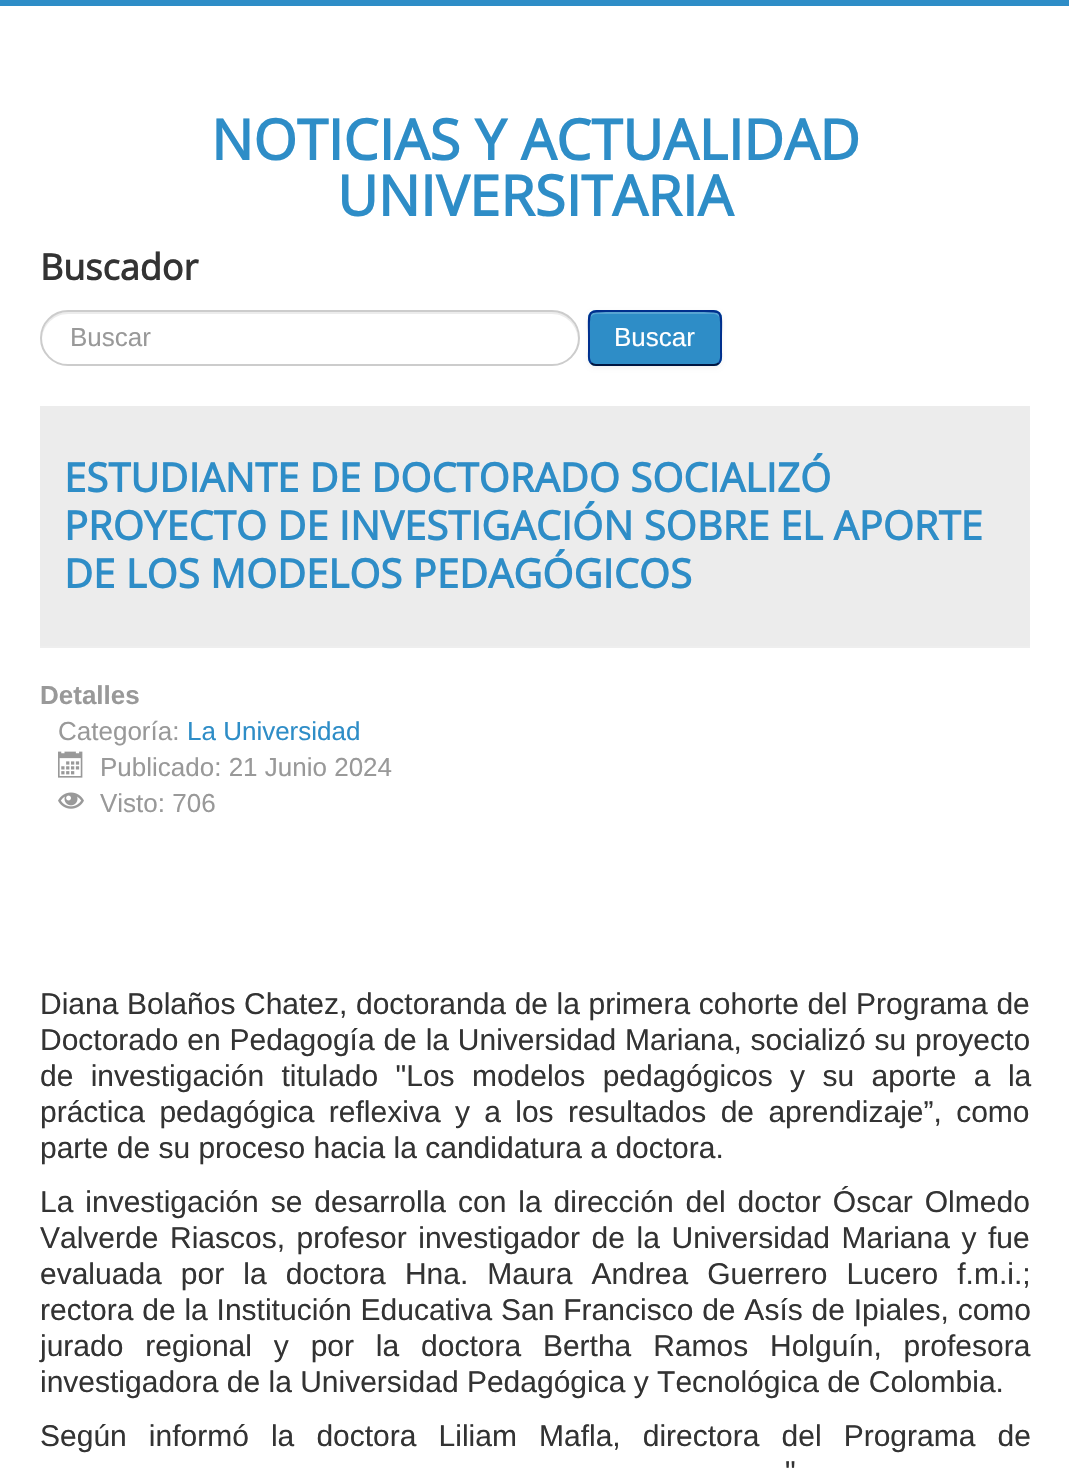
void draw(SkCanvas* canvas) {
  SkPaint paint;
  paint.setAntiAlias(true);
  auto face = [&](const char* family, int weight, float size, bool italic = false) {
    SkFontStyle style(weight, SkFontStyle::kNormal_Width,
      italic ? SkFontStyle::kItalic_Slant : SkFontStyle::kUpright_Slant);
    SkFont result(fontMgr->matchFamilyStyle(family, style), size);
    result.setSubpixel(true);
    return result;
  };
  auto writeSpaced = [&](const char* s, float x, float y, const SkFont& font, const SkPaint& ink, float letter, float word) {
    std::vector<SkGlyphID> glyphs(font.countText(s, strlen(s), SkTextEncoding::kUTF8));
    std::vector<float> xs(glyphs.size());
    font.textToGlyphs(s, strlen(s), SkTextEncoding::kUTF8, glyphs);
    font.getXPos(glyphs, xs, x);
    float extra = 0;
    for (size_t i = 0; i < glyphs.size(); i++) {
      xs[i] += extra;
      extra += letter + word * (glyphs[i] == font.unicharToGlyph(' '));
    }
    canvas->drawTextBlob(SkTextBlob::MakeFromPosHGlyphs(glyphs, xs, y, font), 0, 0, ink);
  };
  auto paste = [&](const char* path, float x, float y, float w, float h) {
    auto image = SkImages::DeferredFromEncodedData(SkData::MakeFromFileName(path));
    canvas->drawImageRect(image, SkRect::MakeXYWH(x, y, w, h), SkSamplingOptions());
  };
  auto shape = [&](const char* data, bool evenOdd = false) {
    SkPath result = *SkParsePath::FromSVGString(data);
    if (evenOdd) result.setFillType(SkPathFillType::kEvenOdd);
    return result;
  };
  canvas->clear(0xffffffff);
  paint.setColor(0xff2e8dc7);
  canvas->drawRect(SkRect::MakeXYWH(0, 0, 1069, 6), paint);
  paint.setColor(0xffececec);
  canvas->drawPath(shape("M68 314H552C566 314 577 325 578 339C579 324 567 312 552 312H68C53 312 41 324 42 339C43 325 54 314 68 314Z"), paint);
  paint.setStroke(true);
  paint.setStrokeWidth(2);
  paint.setColor(0xffcccccc);
  canvas->drawRoundRect(SkRect::MakeXYWH(41, 311, 538, 54), 27, 27, paint);
  paint.setStroke(false);
  paint.setColor(0x0d000000);
  paint.setMaskFilter(SkMaskFilter::MakeBlur(kNormal_SkBlurStyle, 2));
  canvas->drawRoundRect(SkRect::MakeXYWH(588, 312, 134, 56), 8, 8, paint);
  paint.setMaskFilter(nullptr);
  paint.setColor(0xff2e8dc7);
  canvas->drawRoundRect(SkRect::MakeXYWH(588, 310, 134, 56), 8, 8, paint);
  paint.setColor(0xff58a4d2);
  canvas->drawPath(shape("M596 314H714C717 314 720 317 720 320V318C720 315 717 312 714 312H596C593 312 590 315 590 318V320C590 317 593 314 596 314Z"), paint);
  paint.setStroke(true);
  paint.setColor(0xff001641);
  canvas->drawPath(shape("M719 363C717.5 364.5 716 365 714 365H596C594 365 592.5 364.5 591 363"), paint);
  paint.setColor(0xff002f8d);
  canvas->drawPath(shape("M591 363C588 360 589 355 589 351.5V338C589 308 585 311 615.5 311H694.5C725 311 721 308 721 338V351.5C721 355 722 360 719 363"), paint);
  paint.setStroke(false);
  paint.setColor(0xffececec);
  canvas->drawRect(SkRect::MakeXYWH(40, 406, 990, 240), paint);
  paint.setColor(0xffeeeeee);
  canvas->drawRect(SkRect::MakeXYWH(40, 646, 990, 2), paint);
  paste("img/1.png", 58, 751, 25, 27);
  paste("img/2.png", 58, 792, 26, 17);
  auto f0 = face("Open Sans", 700, 56);
  paint.setColor(0xff2e8dc7);
  canvas->drawString("NOTICIAS Y ACTUALIDAD", 211, 160, f0, paint);
  canvas->drawString("UNIVERSITARIA", 337, 216, f0, paint);
  auto f1 = face("Open Sans", 700, 36);
  paint.setColor(0xff333333);
  canvas->drawString("Buscador", 40, 280, f1, paint);
  auto f2 = face("Liberation Sans", 400, 26);
  paint.setColor(0xff999999);
  canvas->drawString("Buscar", 70, 346, f2, paint);
  paint.setColor(0xffffffff);
  canvas->drawString("Buscar", 614, 346, f2, paint);
  auto f3 = face("Open Sans", 700, 40);
  paint.setColor(0xff2e8dc7);
  {
    const struct { const char* s; float x, y; } items[] = {
      {"ESTUDIANTE DE DOCTORADO SOCIALIZÓ", 64, 492},
      {"PROYECTO DE INVESTIGACIÓN SOBRE EL APORTE", 64, 540},
      {"DE LOS MODELOS PEDAGÓGICOS", 64, 588},
    };
    for (auto [s, x, y] : items) {
      canvas->drawString(s, x, y, f3, paint);
    }
  }
  auto f4 = face("Liberation Sans", 700, 26);
  paint.setColor(0xff999999);
  canvas->drawString("Detalles", 40, 704, f4, paint);
  canvas->drawString("Categoría:", 58, 740, f2, paint);
  paint.setColor(0xff2e8dc7);
  canvas->drawString("La Universidad", 187, 740, f2, paint);
  paint.setColor(0xff999999);
  canvas->drawString("Publicado: 21 Junio 2024", 100, 776, f2, paint);
  canvas->drawString("Visto: 706", 100, 812, f2, paint);
  auto f5 = face("Liberation Sans", 400, 30);
  paint.setColor(0xff333333);
  writeSpaced("Diana Bolaños Chatez, doctoranda de la primera cohorte del Programa de", 40, 1014, f5, paint, 0, 0.25f);
  writeSpaced("Doctorado en Pedagogía de la Universidad Mariana, socializó su proyecto", 40, 1050, f5, paint, 0, 0.5f);
  writeSpaced("de investigación titulado \"Los modelos pedagógicos y su aporte a la", 40, 1086, f5, paint, 0, 9);
  writeSpaced("práctica pedagógica reflexiva y a los resultados de aprendizaje”, como", 40, 1122, f5, paint, 0, 6);
  canvas->drawString("parte de su proceso hacia la candidatura a doctora.", 40, 1158, f5, paint);
  writeSpaced("La investigación se desarrolla con la dirección del doctor Óscar Olmedo", 40, 1212, f5, paint, 0, 3.6f);
  writeSpaced("Valverde Riascos, profesor investigador de la Universidad Mariana y fue", 40, 1248, f5, paint, 0, 3.25f);
  writeSpaced("evaluada por la doctora Hna. Maura Andrea Guerrero Lucero f.m.i.;", 40, 1284, f5, paint, 0, 10.75f);
  writeSpaced("rectora de la Institución Educativa San Francisco de Asís de Ipiales, como", 40, 1320, f5, paint, 0, 0.5f);
  writeSpaced("jurado regional y por la doctora Bertha Ramos Holguín, profesora", 40, 1356, f5, paint, 0, 13.5f);
  canvas->drawString("investigadora de la Universidad Pedagógica y Tecnológica de Colombia.", 40, 1392, f5, paint);
  writeSpaced("Según informó la doctora Liliam Mafla, directora del Programa de", 40, 1446, f5, paint, 0, 13.75f);
  writeSpaced("\"", 785, 1482, f5, paint, 0, 5);
}
